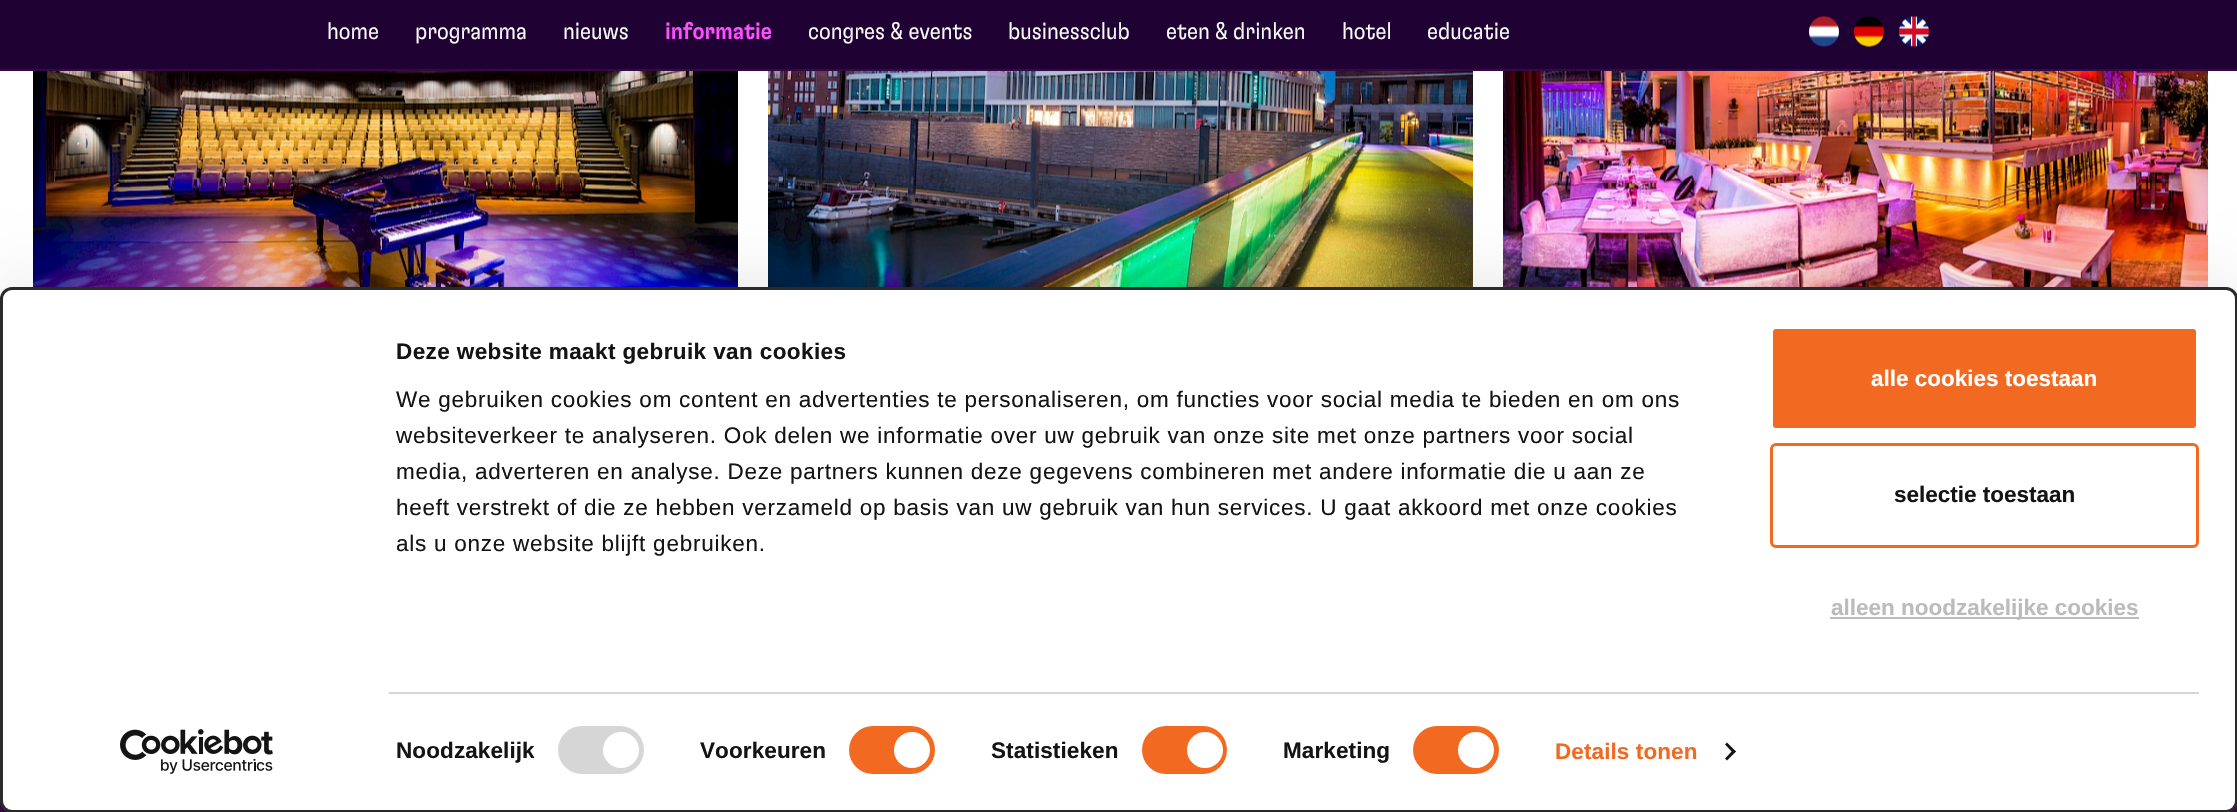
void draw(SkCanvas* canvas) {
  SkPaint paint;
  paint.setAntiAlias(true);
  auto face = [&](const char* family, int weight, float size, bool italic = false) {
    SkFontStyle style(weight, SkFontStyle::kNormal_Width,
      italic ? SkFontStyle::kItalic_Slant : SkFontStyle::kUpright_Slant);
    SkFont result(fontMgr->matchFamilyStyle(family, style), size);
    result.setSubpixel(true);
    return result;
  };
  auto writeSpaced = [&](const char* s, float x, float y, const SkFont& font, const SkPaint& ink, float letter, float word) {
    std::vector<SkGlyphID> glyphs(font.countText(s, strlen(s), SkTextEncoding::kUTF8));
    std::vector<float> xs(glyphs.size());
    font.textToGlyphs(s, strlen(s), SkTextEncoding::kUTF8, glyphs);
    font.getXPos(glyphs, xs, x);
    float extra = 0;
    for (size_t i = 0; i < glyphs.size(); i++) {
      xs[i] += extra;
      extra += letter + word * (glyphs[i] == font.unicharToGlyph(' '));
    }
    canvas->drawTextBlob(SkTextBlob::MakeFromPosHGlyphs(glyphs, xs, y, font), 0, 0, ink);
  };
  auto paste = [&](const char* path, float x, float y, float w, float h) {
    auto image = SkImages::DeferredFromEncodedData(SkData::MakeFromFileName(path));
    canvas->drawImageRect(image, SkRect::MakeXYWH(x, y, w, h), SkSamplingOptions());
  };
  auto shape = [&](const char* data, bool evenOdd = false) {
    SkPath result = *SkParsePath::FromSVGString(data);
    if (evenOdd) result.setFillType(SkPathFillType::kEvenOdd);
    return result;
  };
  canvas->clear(0xffffffff);
  paint.setColor(0xff1f0233);
  canvas->drawRect(SkRect::MakeXYWH(0, 0, 2237, 69), paint);
  paint.setColor(0xff360847);
  canvas->drawRect(SkRect::MakeXYWH(0, 69, 2237, 2), paint);
  paste("img/1.png", 1809, 16, 30, 31);
  paste("img/2.png", 1854, 16, 30, 31);
  paste("img/3.png", 1899, 16, 30, 31);
  paste("img/4.png", 33, 71, 705, 216);
  paste("img/5.png", 768, 71, 705, 216);
  paste("img/6.png", 1503, 71, 705, 216);
  paint.setColor(0xff3e0a4f);
  canvas->drawRect(SkRect::MakeXYWH(0, 801, 2237, 11), paint);
  paint.setColor(0x4d000000);
  paint.setMaskFilter(SkMaskFilter::MakeBlur(kNormal_SkBlurStyle, 52.5f));
  canvas->drawRoundRect(SkRect::MakeXYWH(0, 332, 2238, 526), 12, 12, paint);
  paint.setMaskFilter(nullptr);
  paint.setColor(0xffffffff);
  canvas->drawRoundRect(SkRect::MakeXYWH(1.5f, 288.5f, 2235, 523), 10.5f, 10.5f, paint);
  paint.setStroke(true);
  paint.setStrokeWidth(3);
  paint.setColor(0xff2a2a2a);
  canvas->drawRoundRect(SkRect::MakeXYWH(1.5f, 288.5f, 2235, 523), 10.5f, 10.5f, paint);
  paint.setStroke(false);
  paint.setColor(0xffd6d6d6);
  canvas->drawRect(SkRect::MakeXYWH(389, 692, 1810, 2), paint);
  canvas->drawRoundRect(SkRect::MakeXYWH(558, 726, 86, 48), 24, 24, paint);
  paint.setColor(0xffffffff);
  canvas->drawCircle(621, 750, 18, paint);
  paint.setColor(0xfff26921);
  canvas->drawRoundRect(SkRect::MakeXYWH(849, 726, 86, 48), 24, 24, paint);
  paint.setColor(0xffffffff);
  canvas->drawCircle(912, 750, 18, paint);
  paint.setColor(0xfff26921);
  canvas->drawRoundRect(SkRect::MakeXYWH(1142, 726, 85, 48), 24, 24, paint);
  paint.setColor(0xffffffff);
  canvas->drawCircle(1205, 750, 18, paint);
  paint.setColor(0xfff26921);
  canvas->drawRoundRect(SkRect::MakeXYWH(1413, 726, 86, 48), 24, 24, paint);
  paint.setColor(0xffffffff);
  canvas->drawCircle(1476, 750, 18, paint);
  paint.setColor(0xff141414);
  canvas->drawPath(shape("M1727 742.5L1736 751.5L1733.5 753.5L1725 744.5Z"), paint);
  canvas->drawPath(shape("M1733.5 749.5L1736 751.5L1727 760.5L1725 758.5Z"), paint);
  paint.setColor(0xfff26921);
  canvas->drawRoundRect(SkRect::MakeXYWH(1771.5f, 327.5f, 426, 102), 4.5f, 4.5f, paint);
  paint.setStroke(true);
  paint.setColor(0xffffffff);
  canvas->drawRoundRect(SkRect::MakeXYWH(1771.5f, 327.5f, 426, 102), 4.5f, 4.5f, paint);
  paint.setColor(0xfff26921);
  canvas->drawRoundRect(SkRect::MakeXYWH(1771.5f, 444.5f, 426, 102), 4.5f, 4.5f, paint);
  paint.setStroke(false);
  paint.setColor(0xffbbbbbb);
  canvas->drawRect(SkRect::MakeXYWH(1830, 617, 309, 2), paint);
  paste("img/7.png", 120, 729, 153, 45);
  auto f0 = face("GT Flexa", 300, 24);
  paint.setColor(0xffffffff);
  {
    const struct { const char* s; float x, y; } items[] = {
      {"home", 327, 39},
      {"programma", 415, 39},
      {"nieuws", 563, 39},
    };
    for (auto [s, x, y] : items) {
      canvas->drawString(s, x, y, f0, paint);
    }
  }
  auto f1 = face("GT Flexa", 500, 24);
  paint.setColor(0xffff4dff);
  canvas->drawString("informatie", 665, 39, f1, paint);
  paint.setColor(0xffffffff);
  {
    const struct { const char* s; float x, y; } items[] = {
      {"congres & events", 808, 39},
      {"businessclub", 1008, 39},
      {"eten & drinken", 1166, 39},
      {"hotel", 1342, 39},
      {"educatie", 1427, 39},
    };
    for (auto [s, x, y] : items) {
      canvas->drawString(s, x, y, f0, paint);
    }
  }
  auto f2 = face("Liberation Sans", 700, 22.5f);
  paint.setColor(0xff141414);
  writeSpaced("Deze website maakt gebruik van cookies", 396, 359, f2, paint, 0.4f, 0);
  auto f3 = face("Liberation Sans", 400, 22.5f);
  {
    const struct { const char* s; float x, y; } items[] = {
      {"We gebruiken cookies om content en advertenties te personaliseren, om functies voor social media te bieden en om ons", 396, 407},
      {"websiteverkeer te analyseren. Ook delen we informatie over uw gebruik van onze site met onze partners voor social", 396, 443},
      {"media, adverteren en analyse. Deze partners kunnen deze gegevens combineren met andere informatie die u aan ze", 396, 479},
      {"heeft verstrekt of die ze hebben verzameld op basis van uw gebruik van hun services. U gaat akkoord met onze cookies", 396, 515},
      {"als u onze website blijft gebruiken.", 396, 551},
    };
    for (auto [s, x, y] : items) {
      writeSpaced(s, x, y, f3, paint, 0.75f, 0);
    }
  }
  {
    const struct { const char* s; float x, y; } items[] = {
      {"Noodzakelijk", 396, 758},
      {"Voorkeuren", 700, 758},
      {"Statistieken", 991, 758},
      {"Marketing", 1283, 758},
    };
    for (auto [s, x, y] : items) {
      writeSpaced(s, x, y, f2, paint, 0.1f, 0);
    }
  }
  paint.setColor(0xfff26921);
  writeSpaced("Details tonen", 1555, 759, f2, paint, 0.1f, 0);
  paint.setColor(0xffffffff);
  canvas->drawString("alle cookies toestaan", 1871, 386, f2, paint);
  paint.setColor(0xff141414);
  canvas->drawString("selectie toestaan", 1894, 502, f2, paint);
  paint.setColor(0xffbbbbbb);
  canvas->drawString("alleen noodzakelijke cookies", 1831, 615, f2, paint);
}
